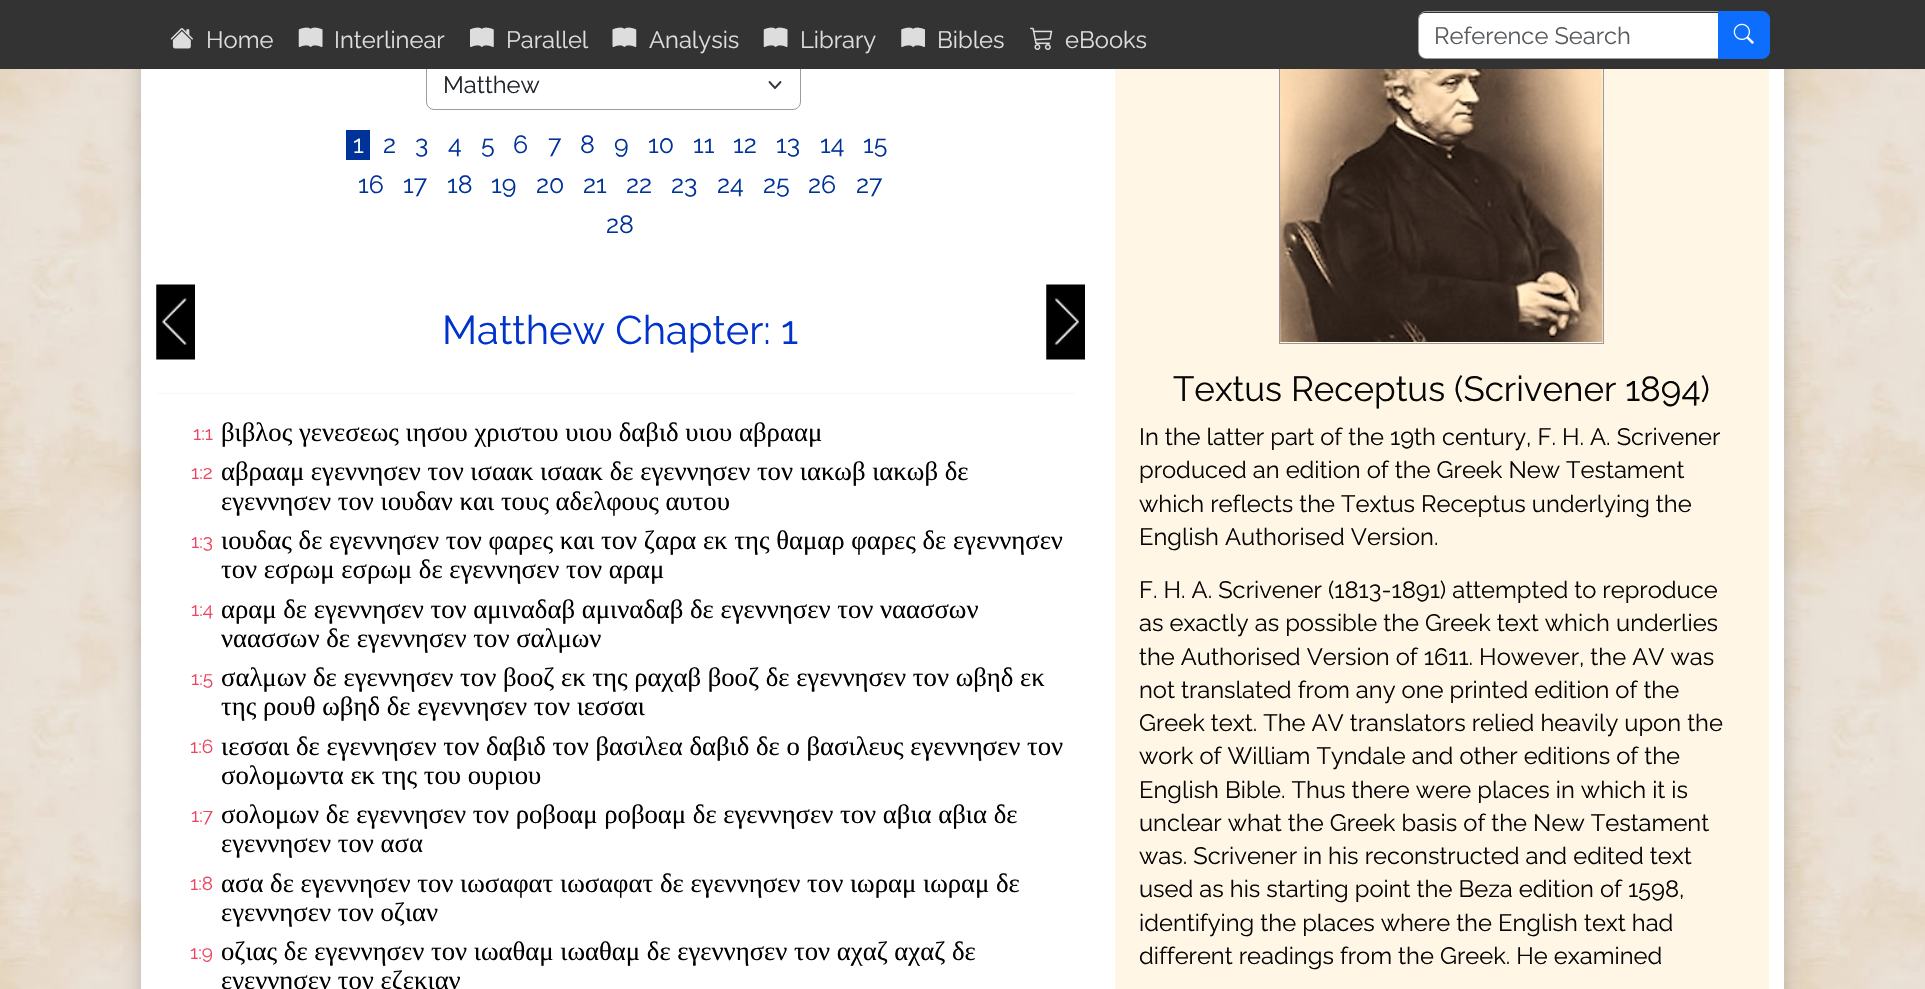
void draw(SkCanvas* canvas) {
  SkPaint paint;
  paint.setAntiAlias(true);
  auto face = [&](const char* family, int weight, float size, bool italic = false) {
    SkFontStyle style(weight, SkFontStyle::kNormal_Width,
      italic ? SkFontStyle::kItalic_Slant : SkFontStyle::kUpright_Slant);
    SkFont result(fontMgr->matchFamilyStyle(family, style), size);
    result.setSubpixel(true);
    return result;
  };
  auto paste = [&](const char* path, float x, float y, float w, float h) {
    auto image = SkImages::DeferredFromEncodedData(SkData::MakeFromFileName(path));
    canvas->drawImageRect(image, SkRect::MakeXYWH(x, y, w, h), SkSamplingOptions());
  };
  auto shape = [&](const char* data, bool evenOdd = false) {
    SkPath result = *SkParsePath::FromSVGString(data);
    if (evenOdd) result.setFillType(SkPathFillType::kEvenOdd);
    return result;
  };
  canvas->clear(0xffffffff);
  paste("img/1.png", 0, 69, 1925, 920);
  paint.setColor(0x33000000);
  paint.setMaskFilter(SkMaskFilter::MakeBlur(kNormal_SkBlurStyle, 9.5f));
  canvas->drawRect(SkRect::MakeXYWH(141, -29, 1643, 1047), paint);
  paint.setMaskFilter(nullptr);
  paint.setColor(0xffffffff);
  canvas->drawRect(SkRect::MakeXYWH(141, 69, 1643, 920), paint);
  paint.setStroke(true);
  paint.setStrokeWidth(1.9f);
  paint.setStrokeCap(SkPaint::kRound_Cap);
  paint.setStrokeJoin(SkPaint::kRound_Join);
  paint.setColor(0xff343a40);
  canvas->drawPath(shape("M769.5 82L775 88L780.5 82"), paint);
  paint.setStrokeWidth(1);
  paint.setStrokeCap(SkPaint::kButt_Cap);
  paint.setStrokeJoin(SkPaint::kMiter_Join);
  paint.setColor(0xff9c9c9c);
  canvas->drawRoundRect(SkRect::MakeXYWH(426.5f, 60.5f, 374, 49), 7.5f, 7.5f, paint);
  paint.setStroke(false);
  paint.setColor(0xfffff6e6);
  canvas->drawRect(SkRect::MakeXYWH(1115, 69, 654, 920), paint);
  paint.setStroke(true);
  paint.setColor(0xff999999);
  canvas->drawRect(SkRect::MakeXYWH(1279.5f, 18.5f, 324, 325), paint);
  paint.setStroke(false);
  paint.setColor(0xff333333);
  canvas->drawRect(SkRect::MakeXYWH(0, 0, 1925, 69), paint);
  paste("img/2.png", 170, 28, 23, 21);
  paste("img/3.png", 298, 27, 25, 20);
  paste("img/4.png", 470, 27, 24, 20);
  paste("img/5.png", 612, 27, 25, 20);
  paste("img/3.png", 763, 27, 25, 20);
  paste("img/6.png", 901, 27, 24, 20);
  paste("img/7.png", 1030, 27, 23, 23);
  paint.setColor(0xffffffff);
  canvas->drawPath(shape("M1425 13H1718V58H1425C1421.5 58 1419 55.5 1419 52V19C1419 15.5 1421.5 13 1425 13Z"), paint);
  paint.setStroke(true);
  paint.setColor(0xff9c9c9c);
  canvas->drawPath(shape("M1426 11.5H1718.5V58.5H1426C1422 58.5 1418.5 55 1418.5 51V19C1418.5 15 1422 11.5 1426 11.5Z"), paint);
  paint.setStroke(false);
  paint.setColor(0xff0d6efd);
  canvas->drawPath(shape("M1718.5 11.5H1762C1766 11.5 1769.5 15 1769.5 19V51C1769.5 55 1766 58.5 1762 58.5H1718.5Z"), paint);
  paint.setStroke(true);
  canvas->drawPath(shape("M1718.5 11.5H1762C1766 11.5 1769.5 15 1769.5 19V51C1769.5 55 1766 58.5 1762 58.5H1718.5Z"), paint);
  paste("img/8.png", 1733, 23, 21, 21);
  paint.setStroke(false);
  paint.setColor(0xff003399);
  canvas->drawRect(SkRect::MakeXYWH(346, 130, 24, 30), paint);
  paste("img/9.png", 156, 284, 39, 76);
  paste("img/10.png", 1046, 284, 39, 76);
  paint.setColor(0xfff7f7f7);
  canvas->drawRect(SkRect::MakeXYWH(156, 393, 919, 1), paint);
  paste("img/11.png", 1280, 69, 323, 273);
  auto f0 = face("Raleway", 100, 23.75f);
  paint.setColor(0xffdddddd);
  {
    const struct { const char* s; float x, y; } items[] = {
      {"Home", 206, 48},
      {"Interlinear", 334, 48},
      {"Parallel", 506, 48},
      {"Analysis", 649, 48},
      {"Library", 800, 48},
      {"Bibles", 937, 48},
      {"eBooks", 1065, 48},
    };
    for (auto [s, x, y] : items) {
      canvas->drawString(s, x, y, f0, paint);
    }
  }
  paint.setColor(0xff595c5f);
  canvas->drawString("Reference Search", 1434, 44, f0, paint);
  paint.setColor(0xff212529);
  canvas->drawString("Matthew", 443, 93, f0, paint);
  auto f1 = face("Raleway", 100, 25);
  paint.setColor(0xffffffff);
  canvas->drawString("1", 353, 153, f1, paint);
  paint.setColor(0xff003399);
  {
    const struct { const char* s; float x, y; } items[] = {
      {"2", 383, 153},
      {"3", 415, 153},
      {"4", 448, 153},
      {"5", 481, 153},
      {"6", 513, 153},
      {"7", 548, 153},
      {"8", 580, 153},
      {"9", 614, 153},
      {"10", 648, 153},
      {"11", 693, 153},
      {"12", 733, 153},
      {"13", 776, 153},
      {"14", 820, 153},
      {"15", 863, 153},
      {"16", 358, 193},
      {"17", 403, 193},
      {"18", 447, 193},
      {"19", 491, 193},
      {"20", 536, 193},
      {"21", 583, 193},
      {"22", 626, 193},
      {"23", 671, 193},
      {"24", 717, 193},
      {"25", 763, 193},
      {"26", 808, 193},
      {"27", 856, 193},
      {"28", 606, 233},
    };
    for (auto [s, x, y] : items) {
      canvas->drawString(s, x, y, f1, paint);
    }
  }
  auto f2 = face("Raleway", 100, 40);
  paint.setColor(0xff0033cc);
  canvas->drawString("Matthew Chapter: 1", 442, 344, f2, paint);
  auto f3 = face("Raleway", 100, 19);
  paint.setColor(0xffee445f);
  canvas->drawString("1:1", 193, 440, f3, paint);
  auto f4 = face("Liberation Serif", 400, 26.7f);
  paint.setColor(0xff000000);
  canvas->drawString("βιβλος γενεσεως ιησου χριστου υιου δαβιδ υιου αβρααμ", 221, 441, f4, paint);
  paint.setColor(0xffee445f);
  canvas->drawString("1:2", 191, 479, f3, paint);
  paint.setColor(0xff000000);
  canvas->drawString("αβρααμ εγεννησεν τον ισαακ ισαακ δε εγεννησεν τον ιακωβ ιακωβ δε", 221, 480, f4, paint);
  canvas->drawString("εγεννησεν τον ιουδαν και τους αδελφους αυτου", 221, 510, f4, paint);
  paint.setColor(0xffee445f);
  canvas->drawString("1:3", 191, 548, f3, paint);
  paint.setColor(0xff000000);
  canvas->drawString("ιουδας δε εγεννησεν τον φαρες και τον ζαρα εκ της θαμαρ φαρες δε εγεννησεν", 221, 549, f4, paint);
  canvas->drawString("τον εσρωμ εσρωμ δε εγεννησεν τον αραμ", 221, 578, f4, paint);
  paint.setColor(0xffee445f);
  canvas->drawString("1:4", 191, 616, f3, paint);
  paint.setColor(0xff000000);
  canvas->drawString("αραμ δε εγεννησεν τον αμιναδαβ αμιναδαβ δε εγεννησεν τον ναασσων", 221, 618, f4, paint);
  canvas->drawString("ναασσων δε εγεννησεν τον σαλμων", 221, 647, f4, paint);
  paint.setColor(0xffee445f);
  canvas->drawString("1:5", 191, 685, f3, paint);
  paint.setColor(0xff000000);
  canvas->drawString("σαλμων δε εγεννησεν τον βοοζ εκ της ραχαβ βοοζ δε εγεννησεν τον ωβηδ εκ", 221, 686, f4, paint);
  canvas->drawString("της ρουθ ωβηδ δε εγεννησεν τον ιεσσαι", 221, 715, f4, paint);
  paint.setColor(0xffee445f);
  canvas->drawString("1:6", 190, 753, f3, paint);
  paint.setColor(0xff000000);
  canvas->drawString("ιεσσαι δε εγεννησεν τον δαβιδ τον βασιλεα δαβιδ δε ο βασιλευς εγεννησεν τον", 221, 755, f4, paint);
  canvas->drawString("σολομωντα εκ της του ουριου", 221, 784, f4, paint);
  paint.setColor(0xffee445f);
  canvas->drawString("1:7", 191, 822, f3, paint);
  paint.setColor(0xff000000);
  canvas->drawString("σολομων δε εγεννησεν τον ροβοαμ ροβοαμ δε εγεννησεν τον αβια αβια δε", 221, 823, f4, paint);
  canvas->drawString("εγεννησεν τον ασα", 221, 852, f4, paint);
  paint.setColor(0xffee445f);
  canvas->drawString("1:8", 190, 890, f3, paint);
  paint.setColor(0xff000000);
  canvas->drawString("ασα δε εγεννησεν τον ιωσαφατ ιωσαφατ δε εγεννησεν τον ιωραμ ιωραμ δε", 221, 892, f4, paint);
  canvas->drawString("εγεννησεν τον οζιαν", 221, 921, f4, paint);
  paint.setColor(0xffee445f);
  canvas->drawString("1:9", 190, 959, f3, paint);
  paint.setColor(0xff000000);
  canvas->drawString("οζιας δε εγεννησεν τον ιωαθαμ ιωαθαμ δε εγεννησεν τον αχαζ αχαζ δε", 221, 960, f4, paint);
  canvas->drawString("εγεννησεν τον εζεκιαν", 221, 989, f4, paint);
  auto f5 = face("Raleway", 100, 35);
  paint.setColor(0xff060606);
  canvas->drawString("Textus Receptus (Scrivener 1894)", 1173, 401, f5, paint);
  {
    const struct { const char* s; float x, y; } items[] = {
      {"In the latter part of the 19th century, F. H. A. Scrivener", 1139, 445},
      {"produced an edition of the Greek New Testament", 1139, 478},
      {"which reflects the Textus Receptus underlying the", 1139, 512},
      {"English Authorised Version.", 1139, 545},
      {"F. H. A. Scrivener (1813-1891) attempted to reproduce", 1139, 598},
      {"as exactly as possible the Greek text which underlies", 1139, 631},
      {"the Authorised Version of 1611. However, the AV was", 1139, 665},
      {"not translated from any one printed edition of the", 1139, 698},
      {"Greek text. The AV translators relied heavily upon the", 1139, 731},
      {"work of William Tyndale and other editions of the", 1139, 764},
      {"English Bible. Thus there were places in which it is", 1139, 798},
      {"unclear what the Greek basis of the New Testament", 1139, 831},
      {"was. Scrivener in his reconstructed and edited text", 1139, 864},
      {"used as his starting point the Beza edition of 1598,", 1139, 897},
      {"identifying the places where the English text had", 1139, 931},
      {"different readings from the Greek. He examined", 1139, 964},
    };
    for (auto [s, x, y] : items) {
      canvas->drawString(s, x, y, f0, paint);
    }
  }
}
